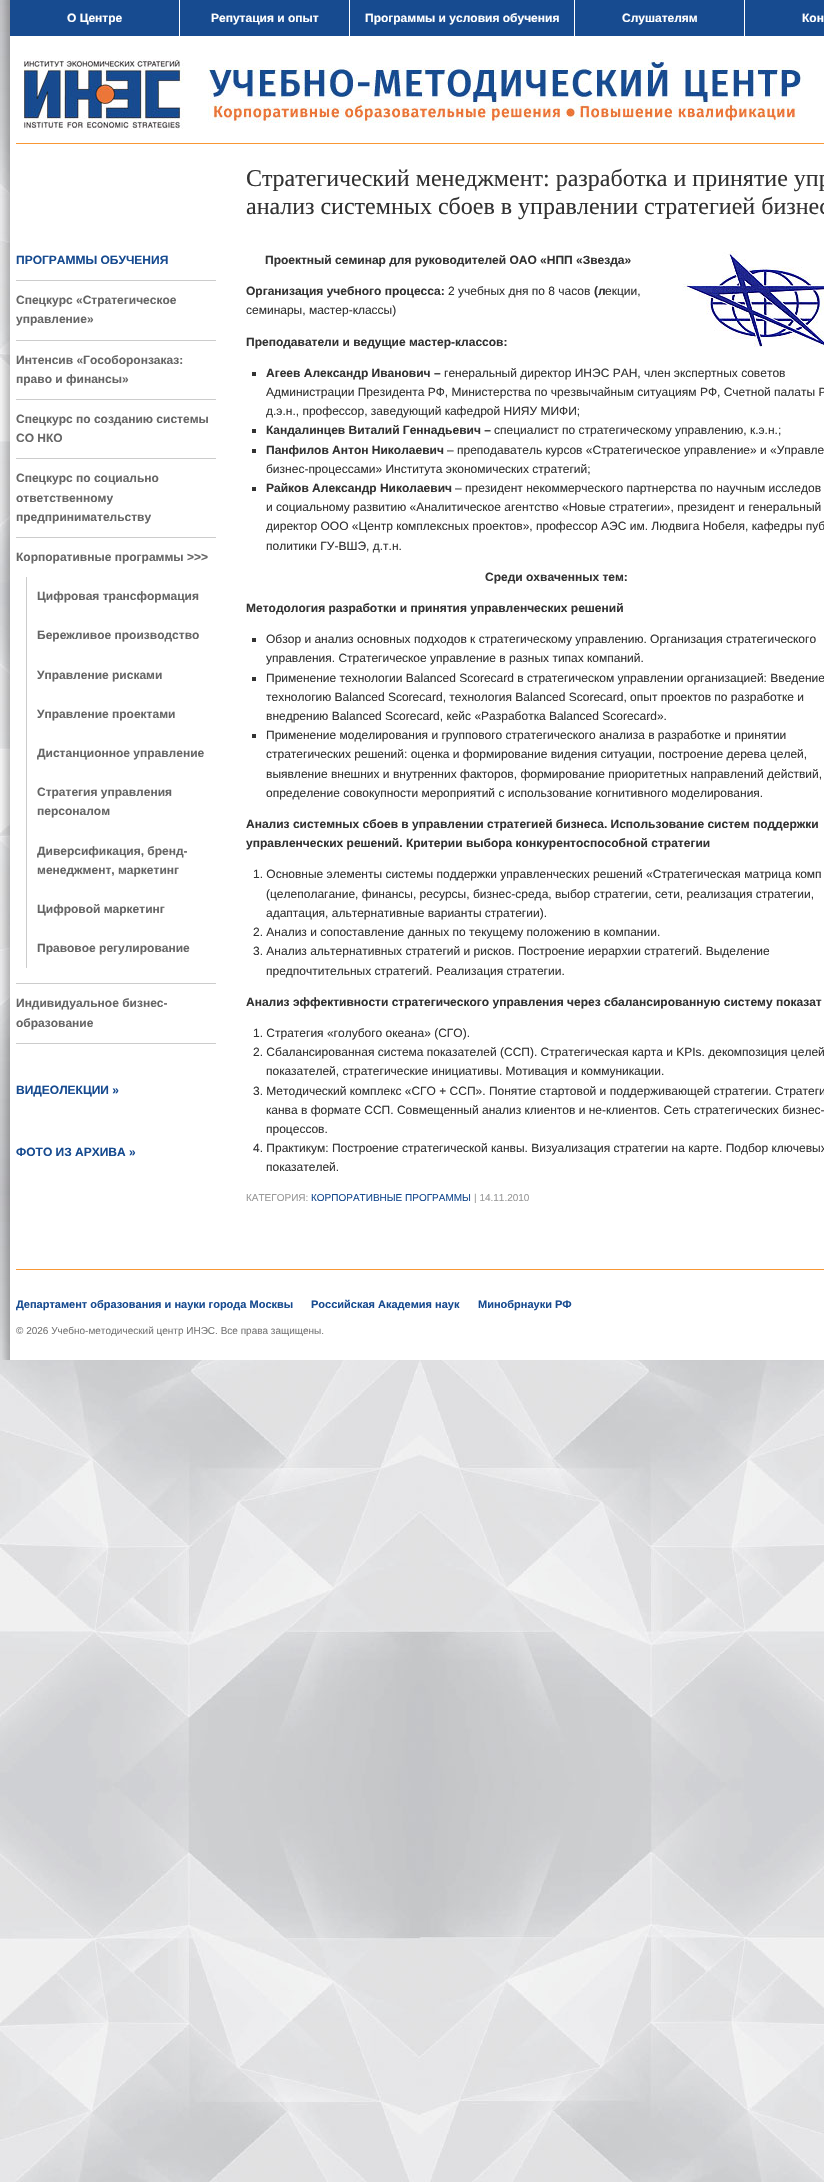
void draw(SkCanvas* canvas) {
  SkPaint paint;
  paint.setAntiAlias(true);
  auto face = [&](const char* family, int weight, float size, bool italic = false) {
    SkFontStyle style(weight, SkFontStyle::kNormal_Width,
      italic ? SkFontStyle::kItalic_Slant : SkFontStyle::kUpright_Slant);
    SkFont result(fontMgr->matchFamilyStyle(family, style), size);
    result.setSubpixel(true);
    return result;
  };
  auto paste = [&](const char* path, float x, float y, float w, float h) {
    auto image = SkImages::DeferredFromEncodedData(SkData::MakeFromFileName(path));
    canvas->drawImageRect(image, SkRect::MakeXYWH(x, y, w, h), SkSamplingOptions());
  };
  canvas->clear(0xffffffff);
  paste("img/1.png", 0, 0, 824, 2182);
  paste("img/2.png", 2, 0, 822, 1360);
  {
    const struct { float x, y, w, h; SkColor color; } items[] = {
      {10, 0, 814, 36, 0xff174b90},
      {179, 0, 1, 36, 0xffffffff},
      {349, 0, 1, 36, 0xffffffff},
      {574, 0, 1, 36, 0xffffffff},
      {744, 0, 1, 36, 0xffffffff},
    };
    for (auto [x, y, w, h, color] : items) {
      paint.setColor(color);
      canvas->drawRect(SkRect::MakeXYWH(x, y, w, h), paint);
    }
  }
  paste("img/3.png", 24, 59, 780, 70);
  {
    const struct { float x, y, w, h; SkColor color; } items[] = {
      {16, 143, 808, 1, 0xfff99734},
      {16, 1043, 200, 1, 0xffcccccc},
      {16, 280, 200, 1, 0xffcccccc},
      {16, 340, 200, 1, 0xffcccccc},
      {16, 399, 200, 1, 0xffcccccc},
      {16, 458, 200, 1, 0xffcccccc},
      {16, 537, 200, 1, 0xffcccccc},
      {26, 577, 1, 391, 0xffcccccc},
      {16, 983, 200, 1, 0xffcccccc},
    };
    for (auto [x, y, w, h, color] : items) {
      paint.setColor(color);
      canvas->drawRect(SkRect::MakeXYWH(x, y, w, h), paint);
    }
  }
  paste("img/4.png", 682, 251, 142, 96);
  {
    const struct { float x, y, w, h; SkColor color; } items[] = {
      {252, 372, 4, 4, 0xff333333},
      {252, 429, 4, 4, 0xff333333},
      {252, 449, 4, 4, 0xff333333},
      {252, 487, 4, 4, 0xff333333},
      {252, 638, 4, 4, 0xff333333},
      {252, 677, 4, 4, 0xff333333},
      {252, 734, 4, 4, 0xff333333},
      {16, 1269, 808, 1, 0xfff99734},
    };
    for (auto [x, y, w, h, color] : items) {
      paint.setColor(color);
      canvas->drawRect(SkRect::MakeXYWH(x, y, w, h), paint);
    }
  }
  auto f0 = face("Liberation Sans", 700, 12);
  paint.setColor(0xffffffff);
  {
    const struct { const char* s; float x, y; } items[] = {
      {"О Центре", 67, 22},
      {"Репутация и опыт", 211, 22},
      {"Программы и условия обучения", 365, 22},
      {"Слушателям", 622, 22},
      {"Кон", 802, 22},
    };
    for (auto [s, x, y] : items) {
      canvas->drawString(s, x, y, f0, paint);
    }
  }
  auto f1 = face("Liberation Serif", 400, 24);
  paint.setColor(0xff333333);
  canvas->drawString("Стратегический менеджмент: разработка и принятие упр", 246, 186, f1, paint);
  canvas->drawString("анализ системных сбоев в управлении стратегией бизнес", 246, 214, f1, paint);
  paint.setColor(0xff174b90);
  canvas->drawString("ПРОГРАММЫ ОБУЧЕНИЯ", 16, 264, f0, paint);
  paint.setColor(0xff666666);
  {
    const struct { const char* s; float x, y; } items[] = {
      {"Спецкурс «Стратегическое", 16, 304},
      {"управление»", 16, 323},
      {"Интенсив «Гособоронзаказ:", 16, 364},
      {"право и финансы»", 16, 383},
      {"Спецкурс по созданию системы", 16, 423},
      {"СО НКО", 16, 442},
      {"Спецкурс по социально", 16, 482},
      {"ответственному", 16, 502},
      {"предпринимательству", 16, 521},
      {"Корпоративные программы >>>", 16, 561},
      {"Цифровая трансформация", 37, 600},
      {"Бережливое производство", 37, 639},
      {"Управление рисками", 37, 679},
      {"Управление проектами", 37, 718},
      {"Дистанционное управление", 37, 757},
      {"Стратегия управления", 37, 796},
      {"персоналом", 37, 815},
      {"Диверсификация, бренд-", 37, 855},
      {"менеджмент, маркетинг", 37, 874},
      {"Цифровой маркетинг", 37, 913},
      {"Правовое регулирование", 37, 952},
      {"Индивидуальное бизнес-", 16, 1007},
      {"образование", 16, 1027},
    };
    for (auto [s, x, y] : items) {
      canvas->drawString(s, x, y, f0, paint);
    }
  }
  paint.setColor(0xff174b90);
  canvas->drawString("ВИДЕОЛЕКЦИИ »", 16, 1094, f0, paint);
  canvas->drawString("ФОТО ИЗ АРХИВА »", 16, 1156, f0, paint);
  paint.setColor(0xff333333);
  canvas->drawString("Проектный семинар для руководителей ОАО «НПП «Звезда»", 265, 264, f0, paint);
  canvas->drawString("Организация учебного процесса:", 246, 295, f0, paint);
  auto f2 = face("Liberation Sans", 400, 12);
  canvas->drawString("2 учебных дня по 8 часов", 448, 295, f2, paint);
  canvas->drawString("(л", 594, 295, f0, paint);
  canvas->drawString("екции,", 605, 295, f2, paint);
  canvas->drawString("семинары, мастер-классы)", 246, 314, f2, paint);
  canvas->drawString("Преподаватели и ведущие мастер-классов:", 246, 346, f0, paint);
  canvas->drawString("Агеев Александр Иванович –", 266, 377, f0, paint);
  {
    const struct { const char* s; float x, y; } items[] = {
      {"генеральный директор ИНЭС РАН, член экспертных советов", 444, 377},
      {"Администрации Президента РФ, Министерства по чрезвычайным ситуациям РФ, Счетной палаты Р", 266, 396},
      {"д.э.н., профессор, заведующий кафедрой НИЯУ МИФИ;", 266, 415},
    };
    for (auto [s, x, y] : items) {
      canvas->drawString(s, x, y, f2, paint);
    }
  }
  canvas->drawString("Кандалинцев Виталий Геннадьевич –", 266, 434, f0, paint);
  canvas->drawString("специалист по стратегическому управлению, к.э.н.;", 494, 434, f2, paint);
  canvas->drawString("Панфилов Антон Николаевич", 266, 454, f0, paint);
  canvas->drawString("– преподаватель курсов «Стратегическое управление» и «Управле", 447, 454, f2, paint);
  canvas->drawString("бизнес-процессами» Института экономических стратегий;", 266, 473, f2, paint);
  canvas->drawString("Райков Александр Николаевич", 266, 492, f0, paint);
  {
    const struct { const char* s; float x, y; } items[] = {
      {"– президент некоммерческого партнерства по научным исследов", 455, 492},
      {"и социальному развитию «Аналитическое агентство «Новые стратегии», президент и генеральный", 266, 511},
      {"директор ООО «Центр комплексных проектов», профессор АЭС им. Людвига Нобеля, кафедры пуб", 266, 530},
      {"политики ГУ-ВШЭ, д.т.н.", 266, 550},
    };
    for (auto [s, x, y] : items) {
      canvas->drawString(s, x, y, f2, paint);
    }
  }
  canvas->drawString("Среди охваченных тем:", 485, 581, f0, paint);
  canvas->drawString("Методология разработки и принятия управленческих решений", 246, 612, f0, paint);
  {
    const struct { const char* s; float x, y; } items[] = {
      {"Обзор и анализ основных подходов к стратегическому управлению. Организация стратегического", 266, 643},
      {"управления. Стратегическое управление в разных типах компаний.", 266, 662},
      {"Применение технологии Balanced Scorecard в стратегическом управлении организацией: Введение", 266, 682},
      {"технологию Balanced Scorecard, технология Balanced Scorecard, опыт проектов по разработке и", 266, 701},
      {"внедрению Balanced Scorecard, кейс «Разработка Balanced Scorecard».", 266, 720},
      {"Применение моделирования и группового стратегического анализа в разработке и принятии", 266, 739},
      {"стратегических решений: оценка и формирование видения ситуации, построение дерева целей,", 266, 758},
      {"выявление внешних и внутренних факторов, формирование приоритетных направлений действий,", 266, 778},
      {"определение совокупности мероприятий с использование когнитивного моделирования.", 266, 797},
    };
    for (auto [s, x, y] : items) {
      canvas->drawString(s, x, y, f2, paint);
    }
  }
  canvas->drawString("Анализ системных сбоев в управлении стратегией бизнеса. Использование систем поддержки", 246, 828, f0, paint);
  canvas->drawString("управленческих решений. Критерии выбора конкурентоспособной стратегии", 246, 847, f0, paint);
  {
    const struct { const char* s; float x, y; } items[] = {
      {"1. Основные элементы системы поддержки управленческих решений «Стратегическая матрица комп", 253, 878},
      {"(целеполагание, финансы, ресурсы, бизнес-среда, выбор стратегии, сети, реализация стратегии,", 266, 898},
      {"адаптация, альтернативные варианты стратегии).", 266, 917},
      {"2. Анализ и сопоставление данных по текущему положению в компании.", 253, 936},
      {"3. Анализ альтернативных стратегий и рисков. Построение иерархии стратегий. Выделение", 253, 955},
      {"предпочтительных стратегий. Реализация стратегии.", 266, 975},
    };
    for (auto [s, x, y] : items) {
      canvas->drawString(s, x, y, f2, paint);
    }
  }
  canvas->drawString("Анализ эффективности стратегического управления через сбалансированную систему показат", 246, 1006, f0, paint);
  {
    const struct { const char* s; float x, y; } items[] = {
      {"1. Стратегия «голубого океана» (СГО).", 253, 1037},
      {"2. Сбалансированная система показателей (ССП). Стратегическая карта и KPIs. декомпозиция целей", 253, 1056},
      {"показателей, стратегические инициативы. Мотивация и коммуникации.", 266, 1075},
      {"3. Методический комплекс «СГО + ССП». Понятие стартовой и поддерживающей стратегии. Стратеги", 253, 1095},
      {"канва в формате ССП. Совмещенный анализ клиентов и не-клиентов. Сеть стратегических бизнес-", 266, 1114},
      {"процессов.", 266, 1133},
      {"4. Практикум: Построение стратегической канвы. Визуализация стратегии на карте. Подбор ключевых", 253, 1152},
      {"показателей.", 266, 1171},
    };
    for (auto [s, x, y] : items) {
      canvas->drawString(s, x, y, f2, paint);
    }
  }
  auto f3 = face("Liberation Sans", 400, 10);
  paint.setColor(0xff999999);
  canvas->drawString("КАТЕГОРИЯ:", 246, 1201, f3, paint);
  paint.setColor(0xff174b90);
  canvas->drawString("КОРПОРАТИВНЫЕ ПРОГРАММЫ", 311, 1201, f3, paint);
  paint.setColor(0xff999999);
  canvas->drawString("| 14.11.2010", 474, 1201, f3, paint);
  auto f4 = face("Liberation Sans", 700, 11);
  paint.setColor(0xff174b90);
  {
    const struct { const char* s; float x, y; } items[] = {
      {"Департамент образования и науки города Москвы", 16, 1308},
      {"Российская Академия наук", 311, 1308},
      {"Минобрнауки РФ", 478, 1308},
    };
    for (auto [s, x, y] : items) {
      canvas->drawString(s, x, y, f4, paint);
    }
  }
  paint.setColor(0xff777777);
  canvas->drawString("© 2026 Учебно-методический центр ИНЭС. Все права защищены.", 16, 1334, f3, paint);
}
